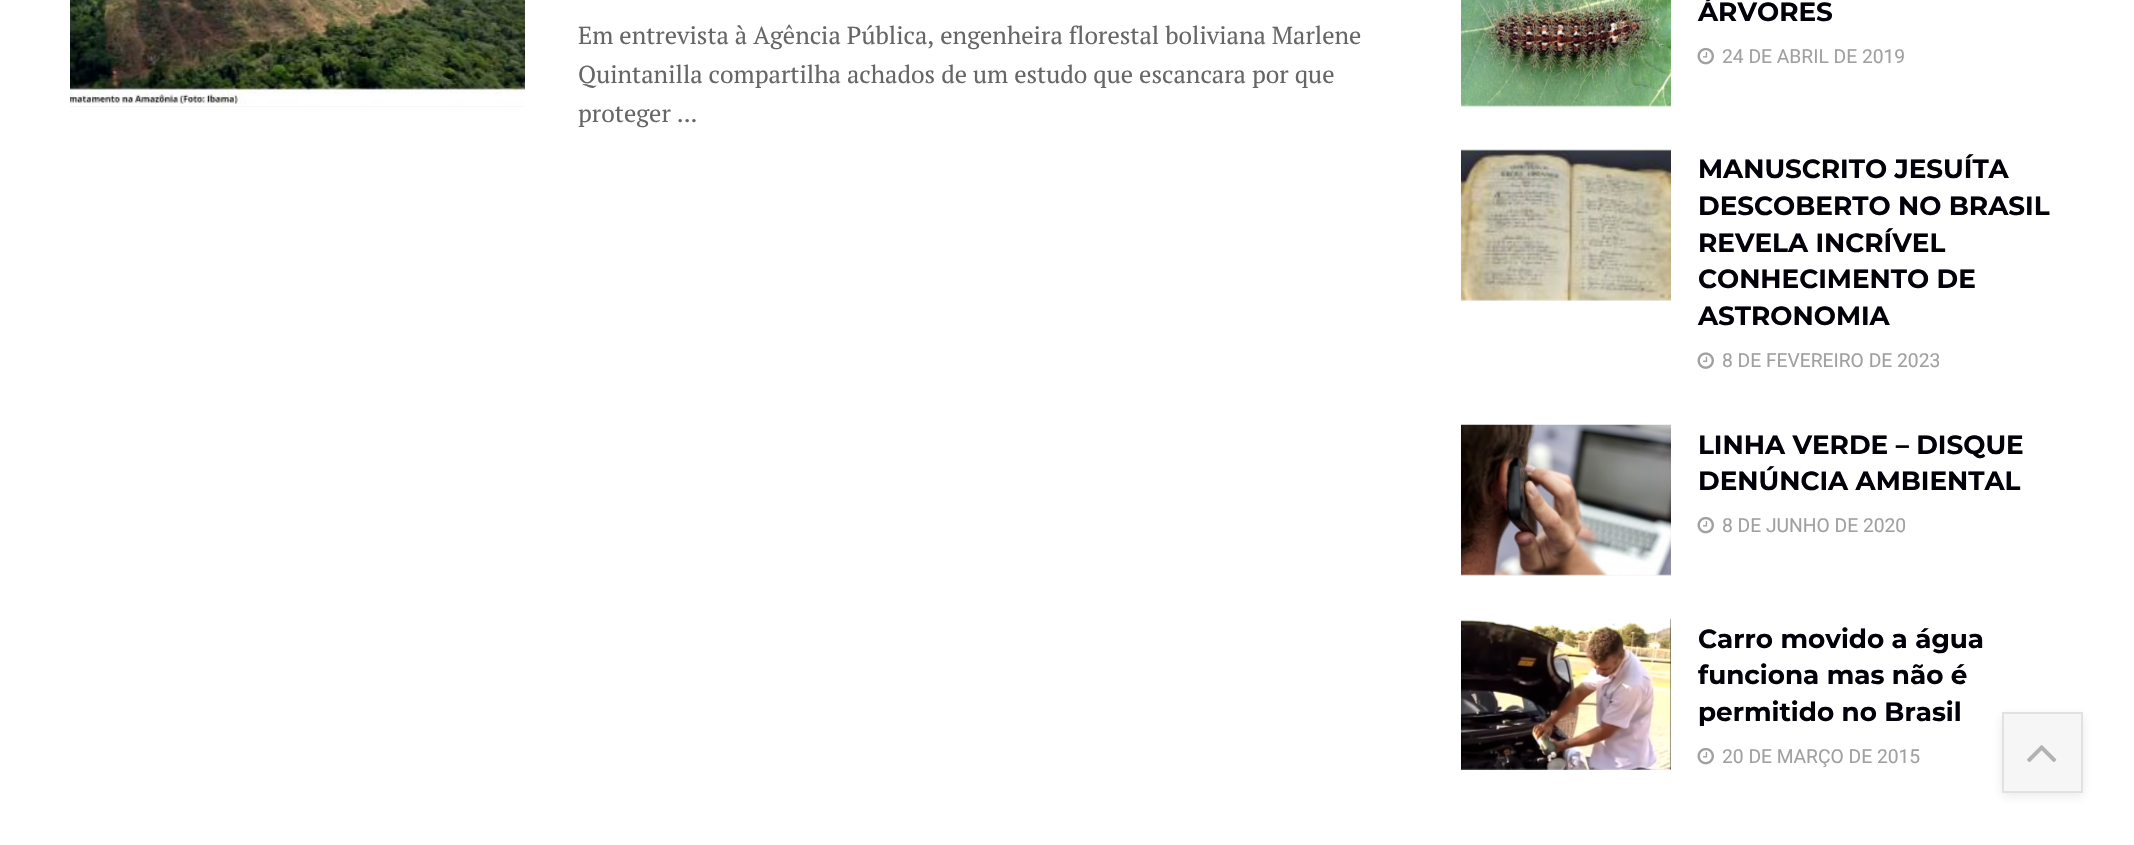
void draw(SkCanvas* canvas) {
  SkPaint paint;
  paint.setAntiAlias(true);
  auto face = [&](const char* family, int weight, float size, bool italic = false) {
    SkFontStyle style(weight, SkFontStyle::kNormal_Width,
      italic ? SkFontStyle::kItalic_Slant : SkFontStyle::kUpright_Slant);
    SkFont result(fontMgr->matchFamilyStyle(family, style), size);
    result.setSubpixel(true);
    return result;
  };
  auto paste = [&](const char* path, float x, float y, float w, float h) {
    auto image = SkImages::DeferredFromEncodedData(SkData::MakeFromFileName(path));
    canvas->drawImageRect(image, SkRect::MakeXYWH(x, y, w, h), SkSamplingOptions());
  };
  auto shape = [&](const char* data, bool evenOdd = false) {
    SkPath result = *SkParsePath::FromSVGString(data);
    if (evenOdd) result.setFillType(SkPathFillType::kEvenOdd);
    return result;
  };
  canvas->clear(0xffffffff);
  paint.setColor(0xfff7f7f7);
  canvas->drawRect(SkRect::MakeXYWH(70, 106, 455, 1), paint);
  paste("img/1.png", 70, 0, 455, 106);
  canvas->drawRect(SkRect::MakeXYWH(1461, 105, 210, 2), paint);
  paste("img/2.png", 1461, 0, 210, 107);
  paste("img/3.png", 1697, 47, 17, 18);
  canvas->drawRect(SkRect::MakeXYWH(1461, 299, 210, 2), paint);
  paint.setColor(0xfffafafa);
  canvas->drawRect(SkRect::MakeXYWH(1461, 150, 210, 1), paint);
  paste("img/4.png", 1461, 149, 210, 152);
  paste("img/5.png", 1697, 352, 17, 17);
  paint.setColor(0xfff7f7f7);
  canvas->drawRect(SkRect::MakeXYWH(1461, 574, 210, 2), paint);
  paste("img/6.png", 1461, 424, 210, 152);
  paste("img/3.png", 1697, 516, 17, 18);
  paint.setColor(0xfffafafa);
  canvas->drawRect(SkRect::MakeXYWH(1461, 619, 210, 1), paint);
  paste("img/7.png", 1461, 618, 210, 152);
  paste("img/3.png", 1697, 747, 17, 18);
  canvas->save();
  canvas->clipPath(shape("M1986 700H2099V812H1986ZM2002 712H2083V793H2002Z", true), true);
  paint.setColor(0x1a333333);
  paint.setMaskFilter(SkMaskFilter::MakeBlur(kNormal_SkBlurStyle, 5));
  canvas->drawRect(SkRect::MakeXYWH(2002, 716, 81, 80), paint);
  paint.setMaskFilter(nullptr);
  canvas->restore();
  paint.setColor(0x26c4c4c4);
  canvas->drawRect(SkRect::MakeXYWH(2002, 712, 81, 81), paint);
  paint.setStroke(true);
  paint.setStrokeWidth(2);
  paint.setColor(0x1c333333);
  canvas->drawRect(SkRect::MakeXYWH(2003, 713, 79, 79), paint);
  paste("img/8.png", 2027, 745, 30, 18);
  auto f0 = face("PT Serif", 400, 24.5f);
  paint.setStroke(false);
  paint.setColor(0xff666666);
  {
    const struct { const char* s; float x, y; } items[] = {
      {"Em entrevista à Agência Pública, engenheira florestal boliviana Marlene", 578, 44},
      {"Quintanilla compartilha achados de um estudo que escancara por que", 578, 83},
      {"proteger ...", 578, 122},
    };
    for (auto [s, x, y] : items) {
      canvas->drawString(s, x, y, f0, paint);
    }
  }
  auto f1 = face("Montserrat", 700, 26.25f);
  paint.setColor(0xff02010a);
  canvas->drawString("ÁRVORES", 1698, 21, f1, paint);
  auto f2 = face("Roboto", 400, 19.25f);
  paint.setColor(0xffa0a0a0);
  canvas->drawString("24 DE ABRIL DE 2019", 1722, 63, f2, paint);
  paint.setColor(0xff02010a);
  {
    const struct { const char* s; float x, y; } items[] = {
      {"MANUSCRITO JESUÍTA", 1698, 178},
      {"DESCOBERTO NO BRASIL", 1698, 215},
      {"REVELA INCRÍVEL", 1698, 252},
      {"CONHECIMENTO DE", 1698, 288},
      {"ASTRONOMIA", 1698, 325},
    };
    for (auto [s, x, y] : items) {
      canvas->drawString(s, x, y, f1, paint);
    }
  }
  paint.setColor(0xffa0a0a0);
  canvas->drawString("8 DE FEVEREIRO DE 2023", 1722, 367, f2, paint);
  paint.setColor(0xff02010a);
  canvas->drawString("LINHA VERDE – DISQUE", 1698, 454, f1, paint);
  canvas->drawString("DENÚNCIA AMBIENTAL", 1698, 490, f1, paint);
  paint.setColor(0xffa0a0a0);
  canvas->drawString("8 DE JUNHO DE 2020", 1722, 532, f2, paint);
  paint.setColor(0xff02010a);
  {
    const struct { const char* s; float x, y; } items[] = {
      {"Carro movido a água", 1698, 648},
      {"funciona mas não é", 1698, 684},
      {"permitido no Brasil", 1698, 721},
    };
    for (auto [s, x, y] : items) {
      canvas->drawString(s, x, y, f1, paint);
    }
  }
  paint.setColor(0xffa0a0a0);
  canvas->drawString("20 DE MARÇO DE 2015", 1722, 763, f2, paint);
}
